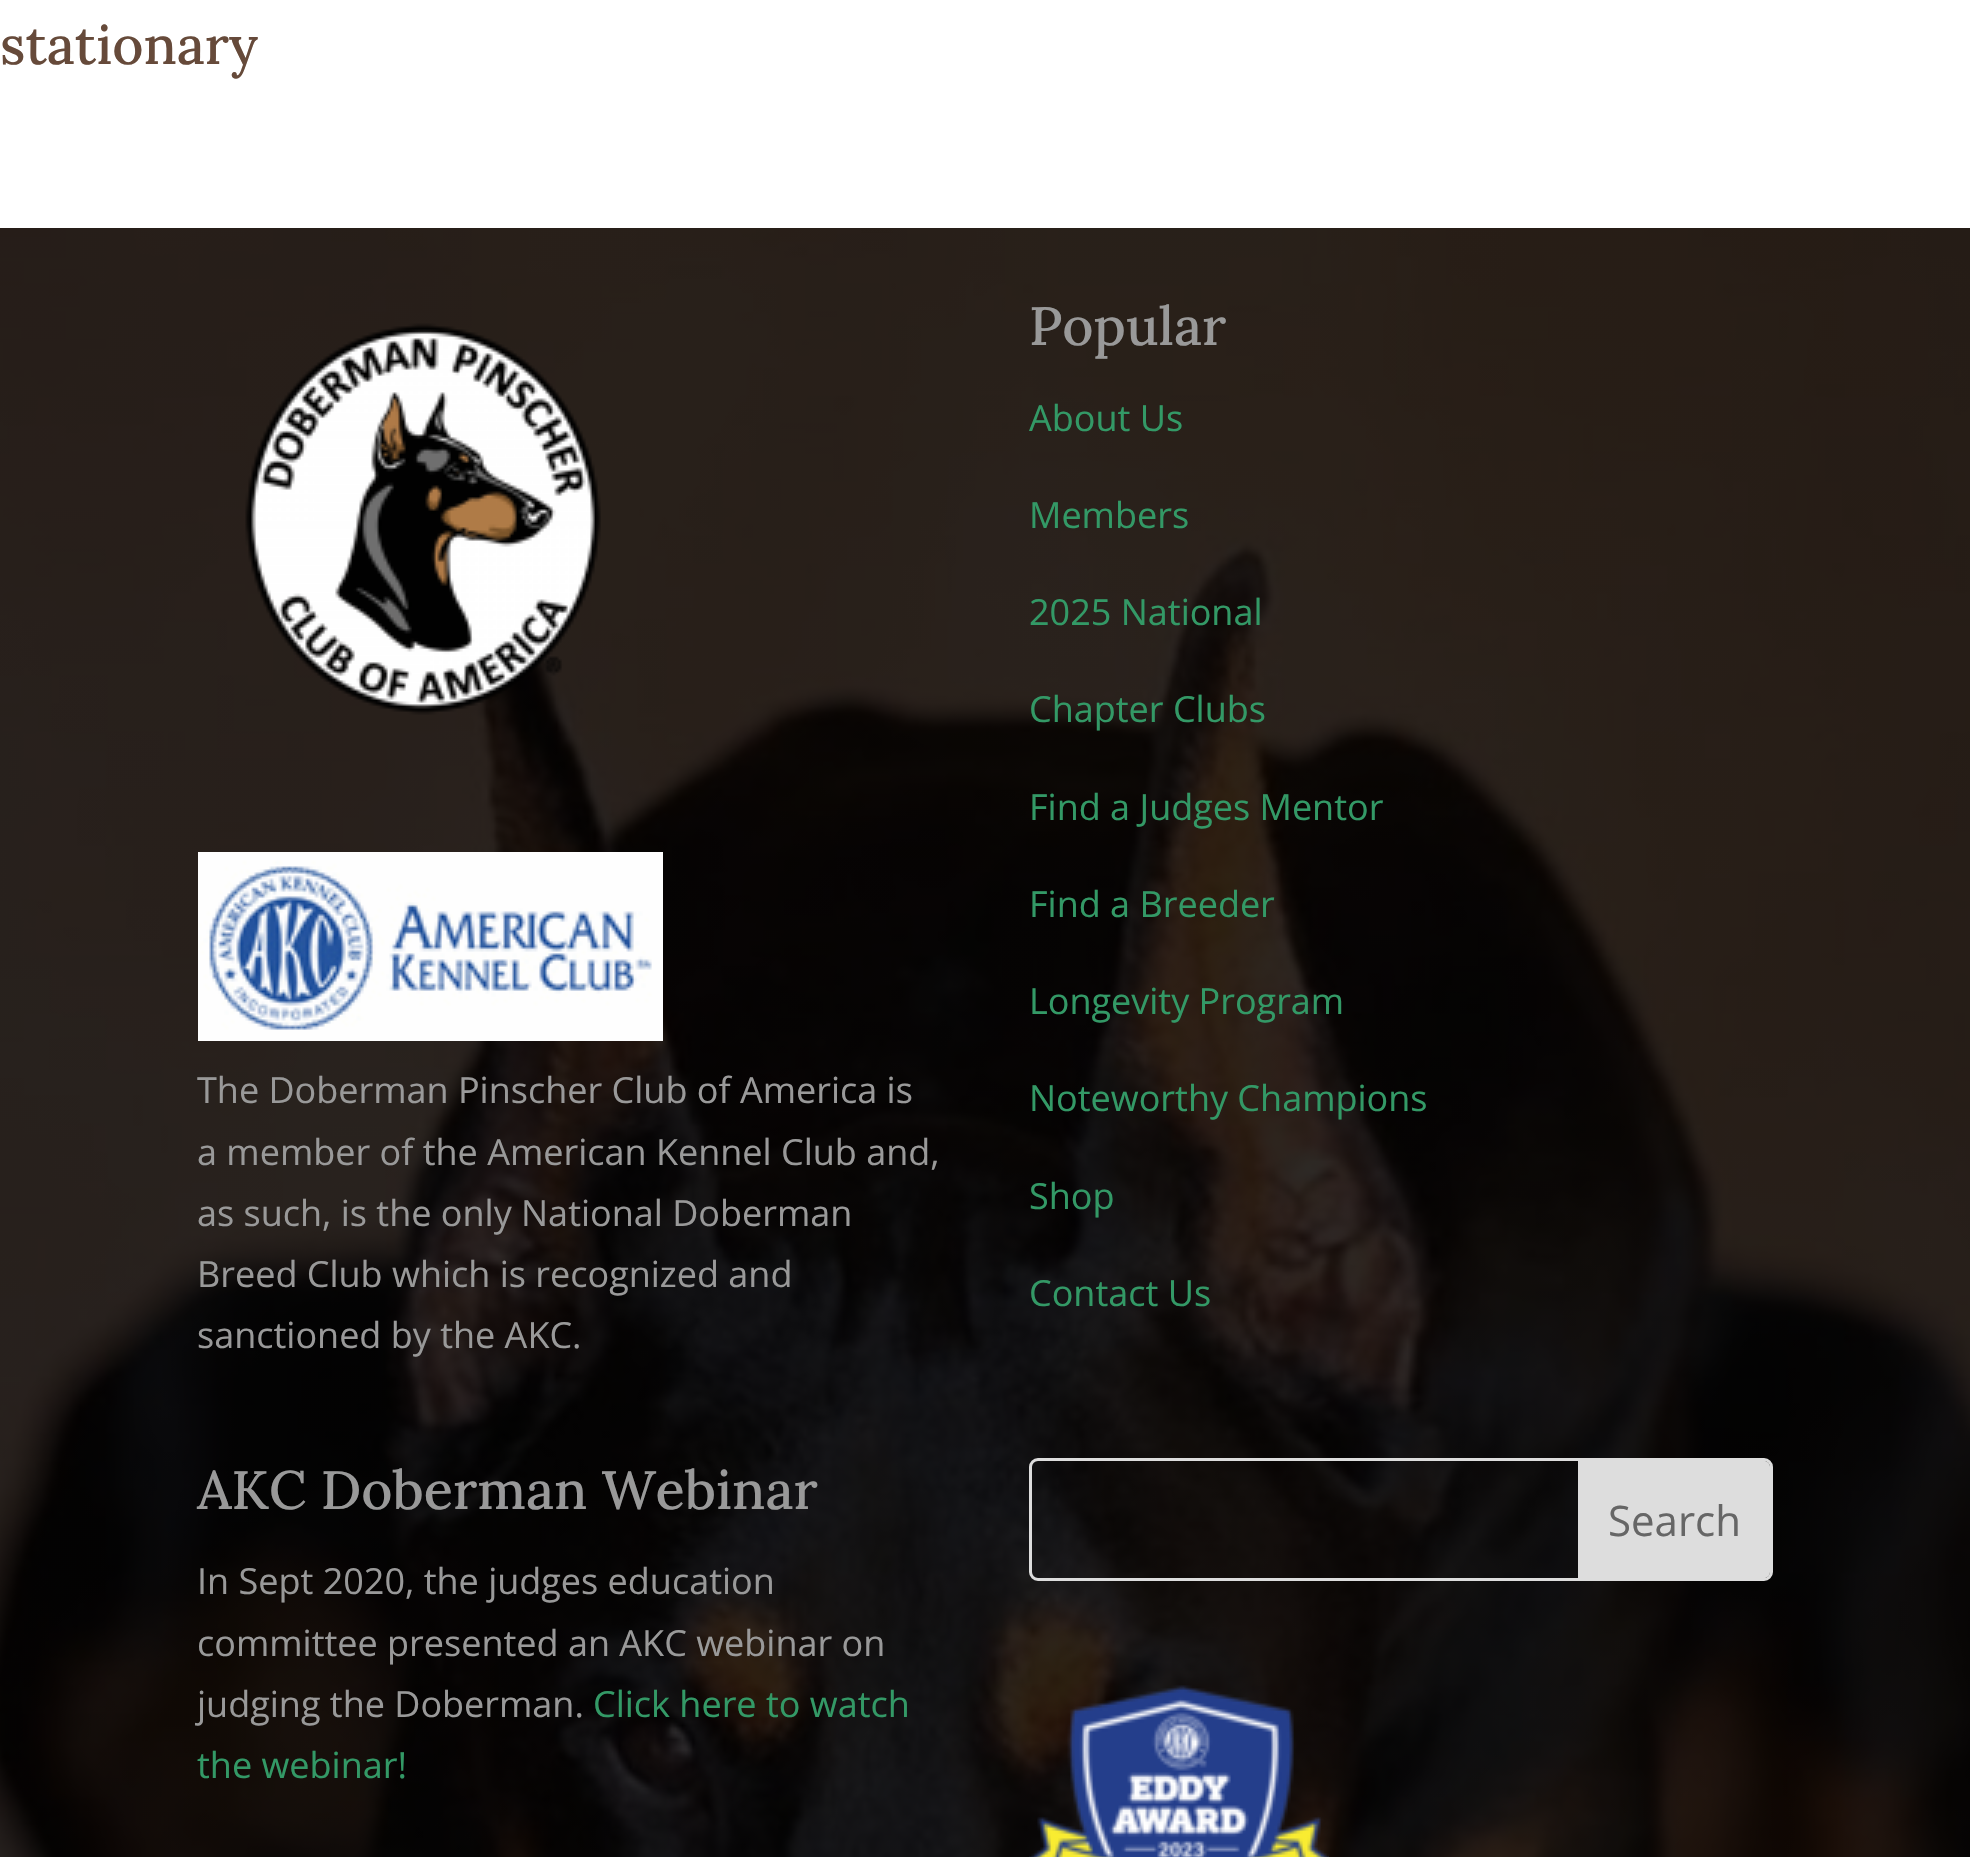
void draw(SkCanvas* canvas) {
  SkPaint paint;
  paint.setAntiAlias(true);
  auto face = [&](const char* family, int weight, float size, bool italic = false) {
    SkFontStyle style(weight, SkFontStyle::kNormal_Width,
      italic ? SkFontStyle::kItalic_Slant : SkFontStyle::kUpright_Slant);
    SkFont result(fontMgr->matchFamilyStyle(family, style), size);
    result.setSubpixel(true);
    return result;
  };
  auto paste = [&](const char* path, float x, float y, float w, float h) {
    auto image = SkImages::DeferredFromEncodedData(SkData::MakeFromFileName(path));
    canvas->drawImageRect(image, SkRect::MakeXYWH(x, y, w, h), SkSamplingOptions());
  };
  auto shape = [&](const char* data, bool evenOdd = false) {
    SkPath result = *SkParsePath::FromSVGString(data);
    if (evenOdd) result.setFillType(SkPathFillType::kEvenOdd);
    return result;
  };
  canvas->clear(0xffffffff);
  paste("img/1.png", 0, 228, 1970, 1629);
  paste("img/2.png", 245, 323, 356, 392);
  paste("img/3.png", 198, 852, 465, 189);
  paint.setStroke(true);
  paint.setStrokeWidth(3);
  paint.setColor(0xffdddddd);
  canvas->drawRoundRect(SkRect::MakeXYWH(1030.5f, 1459.5f, 741, 120), 7.5f, 7.5f, paint);
  paint.setStroke(false);
  canvas->drawPath(shape("M1578 1461H1764C1767.5 1461 1770 1463.5 1770 1467V1572C1770 1575.5 1767.5 1578 1764 1578H1578Z"), paint);
  paste("img/4.png", 1029, 1685, 300, 172);
  auto f0 = face("Lora", 500, 54);
  paint.setColor(0xff664a3a);
  canvas->drawString("stationary", 0, 64, f0, paint);
  auto f1 = face("Open Sans", 400, 36);
  paint.setColor(0xff999999);
  {
    const struct { const char* s; float x, y; } items[] = {
      {"The Doberman Pinscher Club of America is", 197, 1103},
      {"a member of the American Kennel Club and,", 197, 1165},
      {"as such, is the only National Doberman", 197, 1226},
      {"Breed Club which is recognized and", 197, 1287},
      {"sanctioned by the AKC.", 197, 1348},
    };
    for (auto [s, x, y] : items) {
      canvas->drawString(s, x, y, f1, paint);
    }
  }
  canvas->drawString("Popular", 1029, 345, f0, paint);
  paint.setColor(0xff339966);
  {
    const struct { const char* s; float x, y; } items[] = {
      {"About Us", 1029, 431},
      {"Members", 1029, 528},
      {"2025 National", 1029, 625},
      {"Chapter Clubs", 1029, 722},
      {"Find a Judges Mentor", 1029, 820},
      {"Find a Breeder", 1029, 917},
      {"Longevity Program", 1029, 1014},
      {"Noteworthy Champions", 1029, 1111},
      {"Shop", 1029, 1209},
      {"Contact Us", 1029, 1306},
    };
    for (auto [s, x, y] : items) {
      canvas->drawString(s, x, y, f1, paint);
    }
  }
  paint.setColor(0xff999999);
  canvas->drawString("AKC Doberman Webinar", 197, 1509, f0, paint);
  {
    const struct { const char* s; float x, y; } items[] = {
      {"In Sept 2020, the judges education", 197, 1594},
      {"committee presented an AKC webinar on", 197, 1656},
      {"judging the Doberman.", 197, 1717},
    };
    for (auto [s, x, y] : items) {
      canvas->drawString(s, x, y, f1, paint);
    }
  }
  paint.setColor(0xff339966);
  canvas->drawString("Click here to watch", 593, 1717, f1, paint);
  canvas->drawString("the webinar!", 197, 1778, f1, paint);
  auto f2 = face("Open Sans", 400, 42);
  paint.setColor(0xff666666);
  canvas->drawString("Search", 1608, 1536, f2, paint);
}
